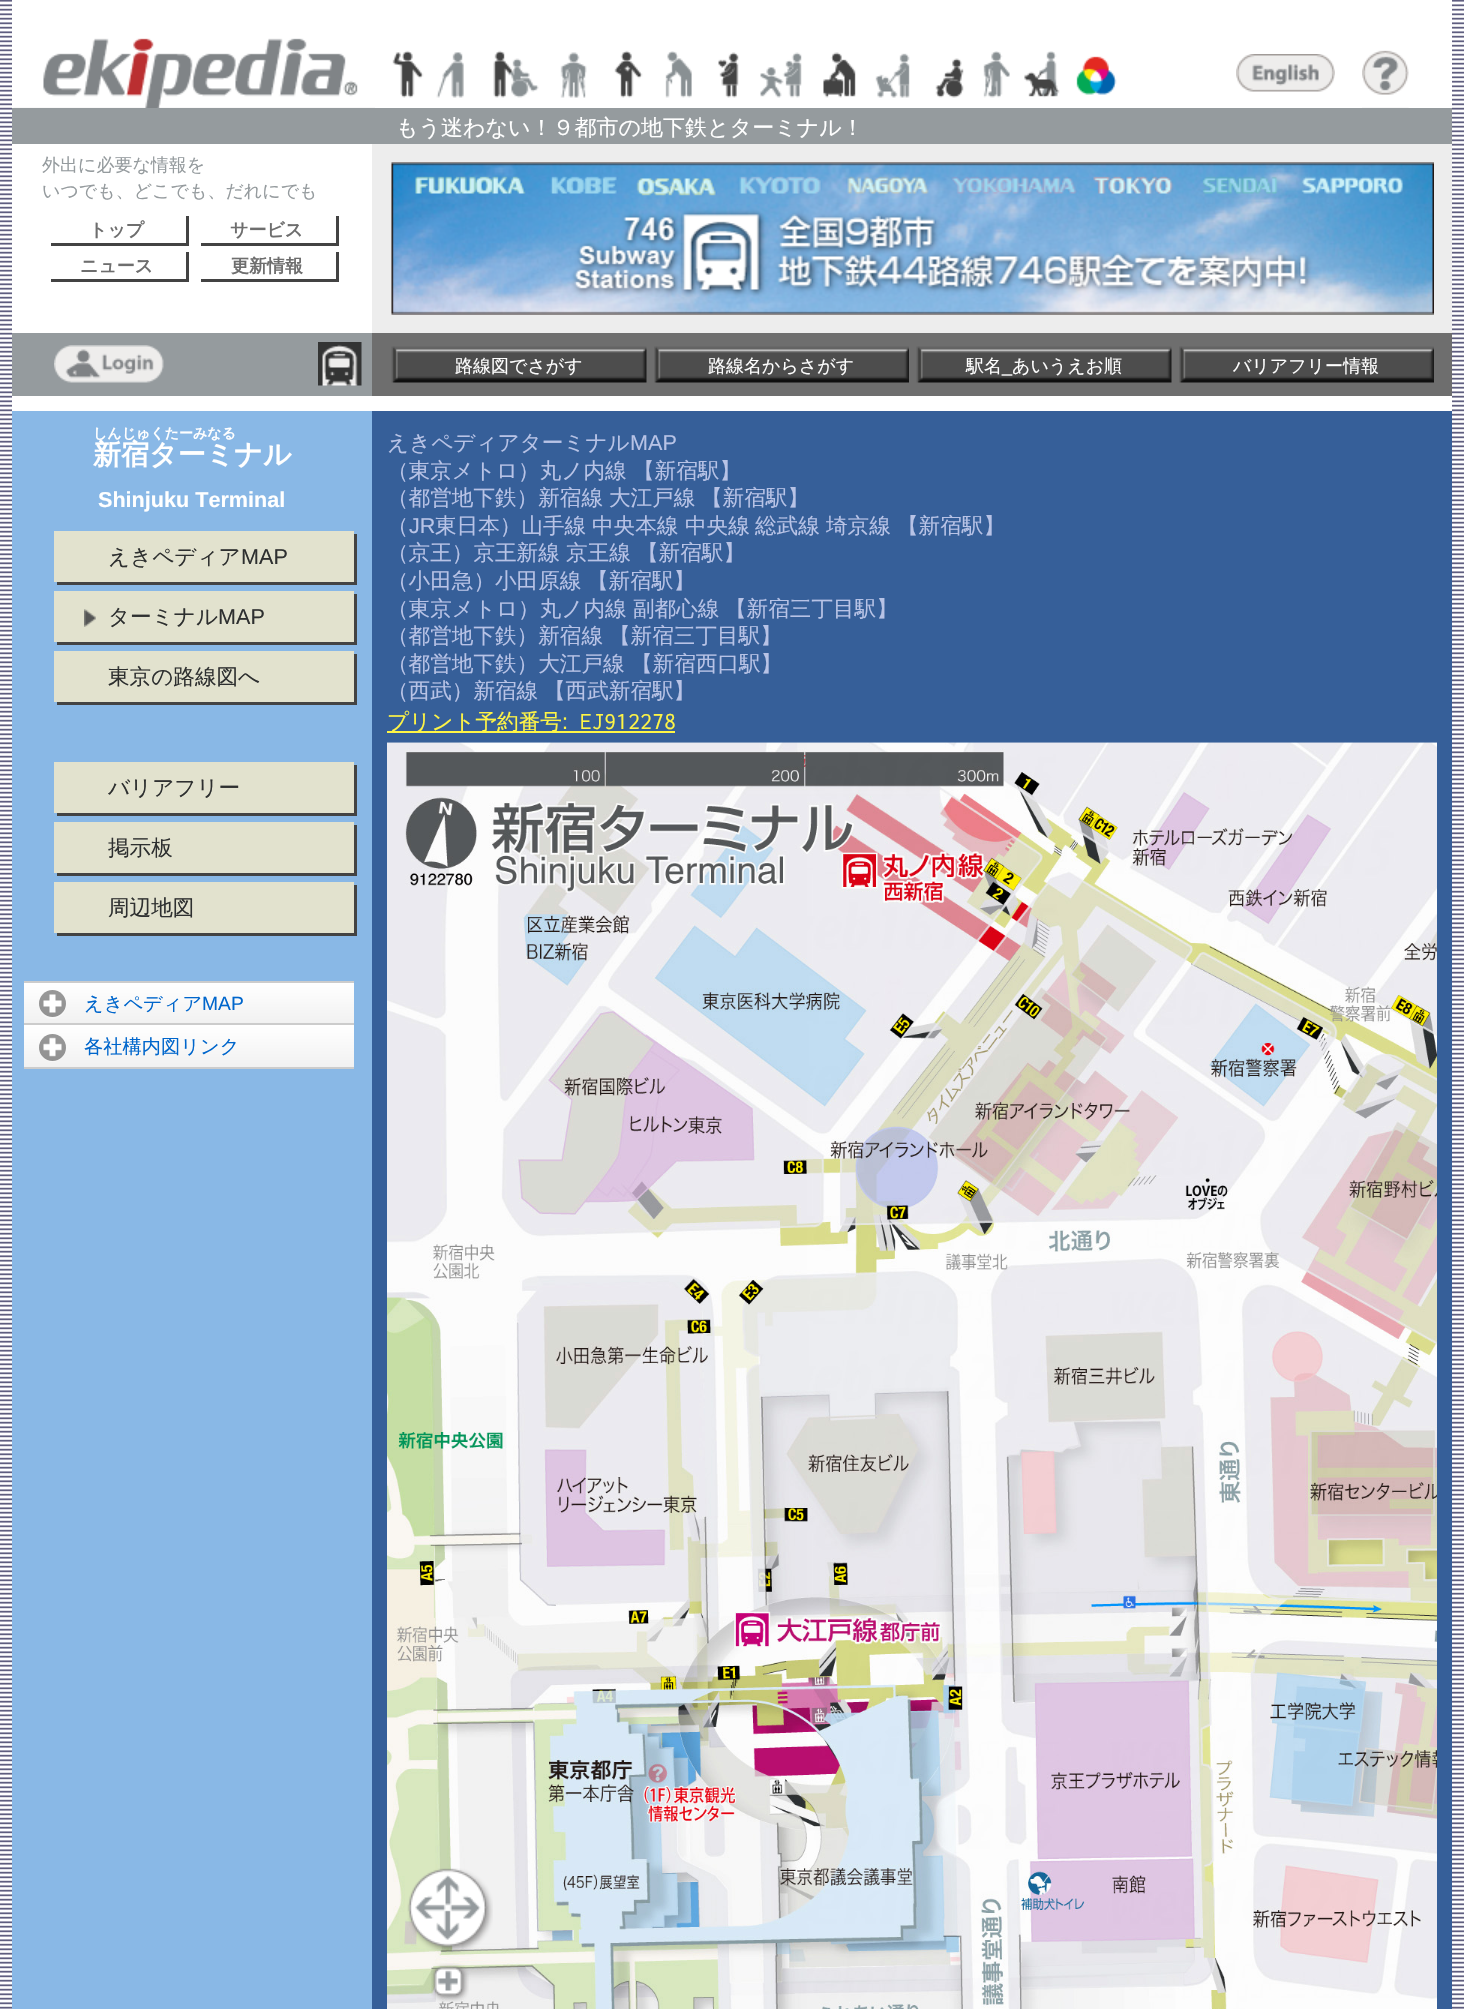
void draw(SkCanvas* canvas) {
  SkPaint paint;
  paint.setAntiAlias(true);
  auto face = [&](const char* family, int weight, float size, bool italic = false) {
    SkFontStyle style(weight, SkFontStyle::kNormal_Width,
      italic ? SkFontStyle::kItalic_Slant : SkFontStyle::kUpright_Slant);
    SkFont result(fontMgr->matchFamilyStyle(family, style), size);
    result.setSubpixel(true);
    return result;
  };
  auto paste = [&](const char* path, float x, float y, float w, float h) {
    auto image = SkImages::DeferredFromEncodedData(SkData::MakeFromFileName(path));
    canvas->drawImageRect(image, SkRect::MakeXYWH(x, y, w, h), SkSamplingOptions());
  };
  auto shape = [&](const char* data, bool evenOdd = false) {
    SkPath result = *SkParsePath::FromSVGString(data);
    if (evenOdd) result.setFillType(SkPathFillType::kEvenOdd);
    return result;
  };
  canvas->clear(0xffffffff);
  paste("img/1.png", 0, 0, 1464, 2009);
  paint.setColor(0xffffffff);
  canvas->drawRect(SkRect::MakeXYWH(12, 0, 1440, 411), paint);
  paste("img/2.png", 13, 38, 362, 70);
  paste("img/3.png", 379, 50, 50, 58);
  paste("img/4.png", 435, 52, 50, 56);
  paste("img/5.png", 489, 50, 57, 58);
  paste("img/6.png", 550, 52, 46, 56);
  paste("img/7.png", 601, 50, 47, 58);
  paste("img/8.png", 652, 51, 50, 57);
  paste("img/9.png", 706, 52, 46, 56);
  paste("img/10.png", 757, 52, 55, 56);
  paste("img/11.png", 816, 52, 50, 56);
  paste("img/12.png", 870, 53, 50, 55);
  paste("img/13.png", 925, 58, 50, 50);
  paste("img/14.png", 979, 51, 35, 57);
  paste("img/15.png", 1018, 51, 50, 57);
  paste("img/16.png", 1074, 56, 47, 52);
  paste("img/17.png", 1236, 54, 99, 38);
  paste("img/18.png", 1362, 50, 47, 58);
  paint.setColor(0xff959b9e);
  canvas->drawRect(SkRect::MakeXYWH(12, 108, 1440, 36), paint);
  paint.setColor(0xff434343);
  canvas->drawPath(shape("M51 243V246H189V216H186V243Z"), paint);
  canvas->drawPath(shape("M201 243V246H339V216H336V243Z"), paint);
  canvas->drawPath(shape("M51 279V282H189V252H186V279Z"), paint);
  canvas->drawPath(shape("M201 279V282H339V252H336V279Z"), paint);
  paint.setColor(0xffededed);
  canvas->drawRect(SkRect::MakeXYWH(372, 144, 1080, 189), paint);
  paste("img/19.png", 391, 162, 1043, 153);
  paint.setColor(0xff959b9e);
  canvas->drawRect(SkRect::MakeXYWH(12, 333, 360, 63), paint);
  paste("img/20.png", 54, 345, 110, 38);
  paste("img/21.png", 318, 342, 44, 44);
  paint.setColor(0xff6e6e6e);
  canvas->drawRect(SkRect::MakeXYWH(372, 333, 1080, 63), paint);
  paste("img/22.png", 391, 346, 256, 37);
  paste("img/23.png", 654, 346, 255, 37);
  paste("img/24.png", 916, 346, 256, 37);
  paste("img/25.png", 1179, 346, 255, 37);
  paint.setColor(0xff89b8e6);
  canvas->drawRect(SkRect::MakeXYWH(12, 411, 360, 1598), paint);
  paint.setColor(0xff434343);
  canvas->drawPath(shape("M57 582V585H357V534H354V582Z"), paint);
  paint.setColor(0xffe2e2ce);
  canvas->drawRect(SkRect::MakeXYWH(54, 531, 300, 51), paint);
  paint.setColor(0xff434343);
  canvas->drawPath(shape("M57 642V645H357V594H354V642Z"), paint);
  paint.setColor(0xffe2e2ce);
  canvas->drawRect(SkRect::MakeXYWH(54, 591, 300, 51), paint);
  paste("img/26.png", 84, 609, 12, 18);
  paint.setColor(0xff434343);
  canvas->drawPath(shape("M57 702V705H357V654H354V702Z"), paint);
  paint.setColor(0xffe2e2ce);
  canvas->drawRect(SkRect::MakeXYWH(54, 651, 300, 51), paint);
  paint.setColor(0xff434343);
  canvas->drawPath(shape("M57 813V816H357V765H354V813Z"), paint);
  paint.setColor(0xffe2e2ce);
  canvas->drawRect(SkRect::MakeXYWH(54, 762, 300, 51), paint);
  paint.setColor(0xff434343);
  canvas->drawPath(shape("M57 873V876H357V825H354V873Z"), paint);
  paint.setColor(0xffe2e2ce);
  canvas->drawRect(SkRect::MakeXYWH(54, 822, 300, 51), paint);
  paint.setColor(0xff434343);
  canvas->drawPath(shape("M57 933V936H357V885H354V933Z"), paint);
  paint.setColor(0xffe2e2ce);
  canvas->drawRect(SkRect::MakeXYWH(54, 882, 300, 51), paint);
  {
    const SkColor colors[] = {0xffffffff, 0xfff1f1f1};
    const float stops[] = {0, 1};
    const SkPoint ends[] = {{189, 983}, {189, 1023}};
    paint.setShader(SkGradientShader::MakeLinear(ends, colors, stops, 2, SkTileMode::kClamp));
    paint.setAlpha(255);
  }
  canvas->drawRect(SkRect::MakeXYWH(24, 983, 330, 40), paint);
  paint.setShader(nullptr);
  paint.setColor(0xffcccccc);
  canvas->drawRect(SkRect::MakeXYWH(24, 981, 330, 2), paint);
  canvas->drawRect(SkRect::MakeXYWH(24, 1023, 330, 2), paint);
  paint.setColor(0x66ffffff);
  canvas->drawPath(shape("M39 1004.5C39 1007.5 39.5 1010.5 41.5 1013C49 1024.5 67 1018 66 1004.5C65 1021 40 1021 39 1004.5Z"), paint);
  paint.setColor(0x66000000);
  canvas->drawCircle(52.5f, 1003.5f, 13.5f, paint);
  paste("img/27.png", 43, 994, 19, 19);
  {
    const SkColor colors[] = {0xffffffff, 0xfff1f1f1};
    const float stops[] = {0, 1};
    const SkPoint ends[] = {{189, 1025}, {189, 1067}};
    paint.setShader(SkGradientShader::MakeLinear(ends, colors, stops, 2, SkTileMode::kClamp));
    paint.setAlpha(255);
  }
  canvas->drawRect(SkRect::MakeXYWH(24, 1025, 330, 42), paint);
  paint.setShader(nullptr);
  paint.setColor(0xffcccccc);
  canvas->drawRect(SkRect::MakeXYWH(24, 1067, 330, 2), paint);
  paint.setColor(0xfff8f8f8);
  canvas->drawPath(shape("M66 1048C65 1064.5 40 1064.5 39 1048C39 1050.5 39.5 1053.5 41.5 1056C49 1067.5 66.5 1061.5 66 1048Z"), paint);
  paint.setColor(0x66000000);
  canvas->drawCircle(52.5f, 1047.5f, 13.5f, paint);
  paste("img/28.png", 43, 1037, 19, 20);
  paint.setColor(0xff365f99);
  canvas->drawRect(SkRect::MakeXYWH(372, 411, 1080, 1598), paint);
  paint.setColor(0xfffff545);
  canvas->drawRect(SkRect::MakeXYWH(387, 731, 288, 2), paint);
  paste("img/29.png", 387, 742, 1050, 1267);
  paste("img/30.png", 407, 1868, 86, 86);
  paste("img/31.png", 431, 1963, 38, 39);
  auto f0 = face("WenQuanYi Zen Hei", 500, 22);
  paint.setColor(0xffffffff);
  canvas->drawString("もう迷わない！９都市の地下鉄とターミナル！", 396, 135, f0, paint);
  auto f1 = face("WenQuanYi Zen Hei", 500, 18);
  paint.setColor(0xff959b9e);
  canvas->drawString("外出に必要な情報を", 42, 171, f1, paint);
  canvas->drawString("いつでも、どこでも、だれにでも", 42, 197, f1, paint);
  auto f2 = face("WenQuanYi Zen Hei", 700, 18);
  paint.setColor(0xff6e6e6e);
  {
    const struct { const char* s; float x, y; } items[] = {
      {"トップ", 89, 236},
      {"サービス", 230, 236},
      {"ニュース", 80, 272},
      {"更新情報", 231, 272},
    };
    for (auto [s, x, y] : items) {
      canvas->drawString(s, x, y, f2, paint);
    }
  }
  paint.setColor(0xffffffff);
  {
    const struct { const char* s; float x, y; } items[] = {
      {"路線図でさがす", 455, 372},
      {"路線名からさがす", 708, 372},
      {"駅名", 966, 372},
    };
    for (auto [s, x, y] : items) {
      canvas->drawString(s, x, y, f1, paint);
    }
  }
  auto f3 = face("Liberation Sans", 400, 18);
  canvas->drawString("_", 1002, 372, f3, paint);
  canvas->drawString("あいうえお順", 1012, 372, f1, paint);
  canvas->drawString("バリアフリー情報", 1233, 372, f1, paint);
  auto f4 = face("WenQuanYi Zen Hei", 700, 14);
  canvas->drawString("しんじゅくたーみなる", 93, 438, f4, paint);
  auto f5 = face("WenQuanYi Zen Hei", 700, 28);
  canvas->drawString("新宿ターミナル", 93, 464, f5, paint);
  auto f6 = face("Liberation Sans", 700, 21.6f);
  canvas->drawString("Shinjuku Terminal", 98, 507, f6, paint);
  auto f7 = face("WenQuanYi Zen Hei", 500, 21.6f);
  paint.setColor(0xff2e3030);
  canvas->drawString("えきペディア", 108, 564, f7, paint);
  auto f8 = face("Liberation Sans", 400, 21.6f);
  canvas->drawString("MAP", 241, 564, f8, paint);
  canvas->drawString("ターミナル", 108, 624, f7, paint);
  canvas->drawString("MAP", 218, 624, f8, paint);
  {
    const struct { const char* s; float x, y; } items[] = {
      {"東京の路線図へ", 108, 684},
      {"バリアフリー", 108, 795},
      {"掲示板", 108, 855},
      {"周辺地図", 108, 915},
    };
    for (auto [s, x, y] : items) {
      canvas->drawString(s, x, y, f7, paint);
    }
  }
  auto f9 = face("WenQuanYi Zen Hei", 500, 19.25f);
  paint.setColor(0xff0066cc);
  canvas->drawString("えきペディア", 84, 1010, f9, paint);
  auto f10 = face("Liberation Sans", 400, 19.25f);
  canvas->drawString("MAP", 202, 1010, f10, paint);
  canvas->drawString("各社構内図リンク", 84, 1053, f9, paint);
  paint.setColor(0xffb8c3e6);
  canvas->drawString("えきペディアターミナル", 387, 450, f7, paint);
  canvas->drawString("MAP", 630, 450, f8, paint);
  {
    const struct { const char* s; float x, y; } items[] = {
      {"（東京メトロ）丸ノ内線", 387, 478},
      {"【新宿駅】", 633, 478},
      {"（都営地下鉄）新宿線", 387, 505},
      {"大江戸線", 609, 505},
      {"【新宿駅】", 701, 505},
      {"（", 387, 533},
    };
    for (auto [s, x, y] : items) {
      canvas->drawString(s, x, y, f7, paint);
    }
  }
  canvas->drawString("JR", 409, 533, f8, paint);
  {
    const struct { const char* s; float x, y; } items[] = {
      {"東日本）山手線", 435, 533},
      {"中央本線", 592, 533},
      {"中央線", 685, 533},
      {"総武線", 755, 533},
      {"埼京線", 826, 533},
      {"【新宿駅】", 897, 533},
      {"（京王）京王新線", 387, 560},
      {"京王線", 566, 560},
      {"【新宿駅】", 637, 560},
      {"（小田急）小田原線", 387, 588},
      {"【新宿駅】", 587, 588},
      {"（東京メトロ）丸ノ内線", 387, 616},
      {"副都心線", 633, 616},
      {"【新宿三丁目駅】", 725, 616},
      {"（都営地下鉄）新宿線", 387, 643},
      {"【新宿三丁目駅】", 609, 643},
      {"（都営地下鉄）大江戸線", 387, 671},
      {"【新宿西口駅】", 631, 671},
      {"（西武）新宿線", 387, 698},
      {"【西武新宿駅】", 544, 698},
    };
    for (auto [s, x, y] : items) {
      canvas->drawString(s, x, y, f7, paint);
    }
  }
  paint.setColor(0xfffff545);
  canvas->drawString("プリント予約番号", 387, 729, f7, paint);
  canvas->drawString(":", 562, 729, f8, paint);
  auto f11 = face("Inconsolata", 400, 24);
  canvas->drawString("EJ912278", 580, 729, f11, paint);
}
